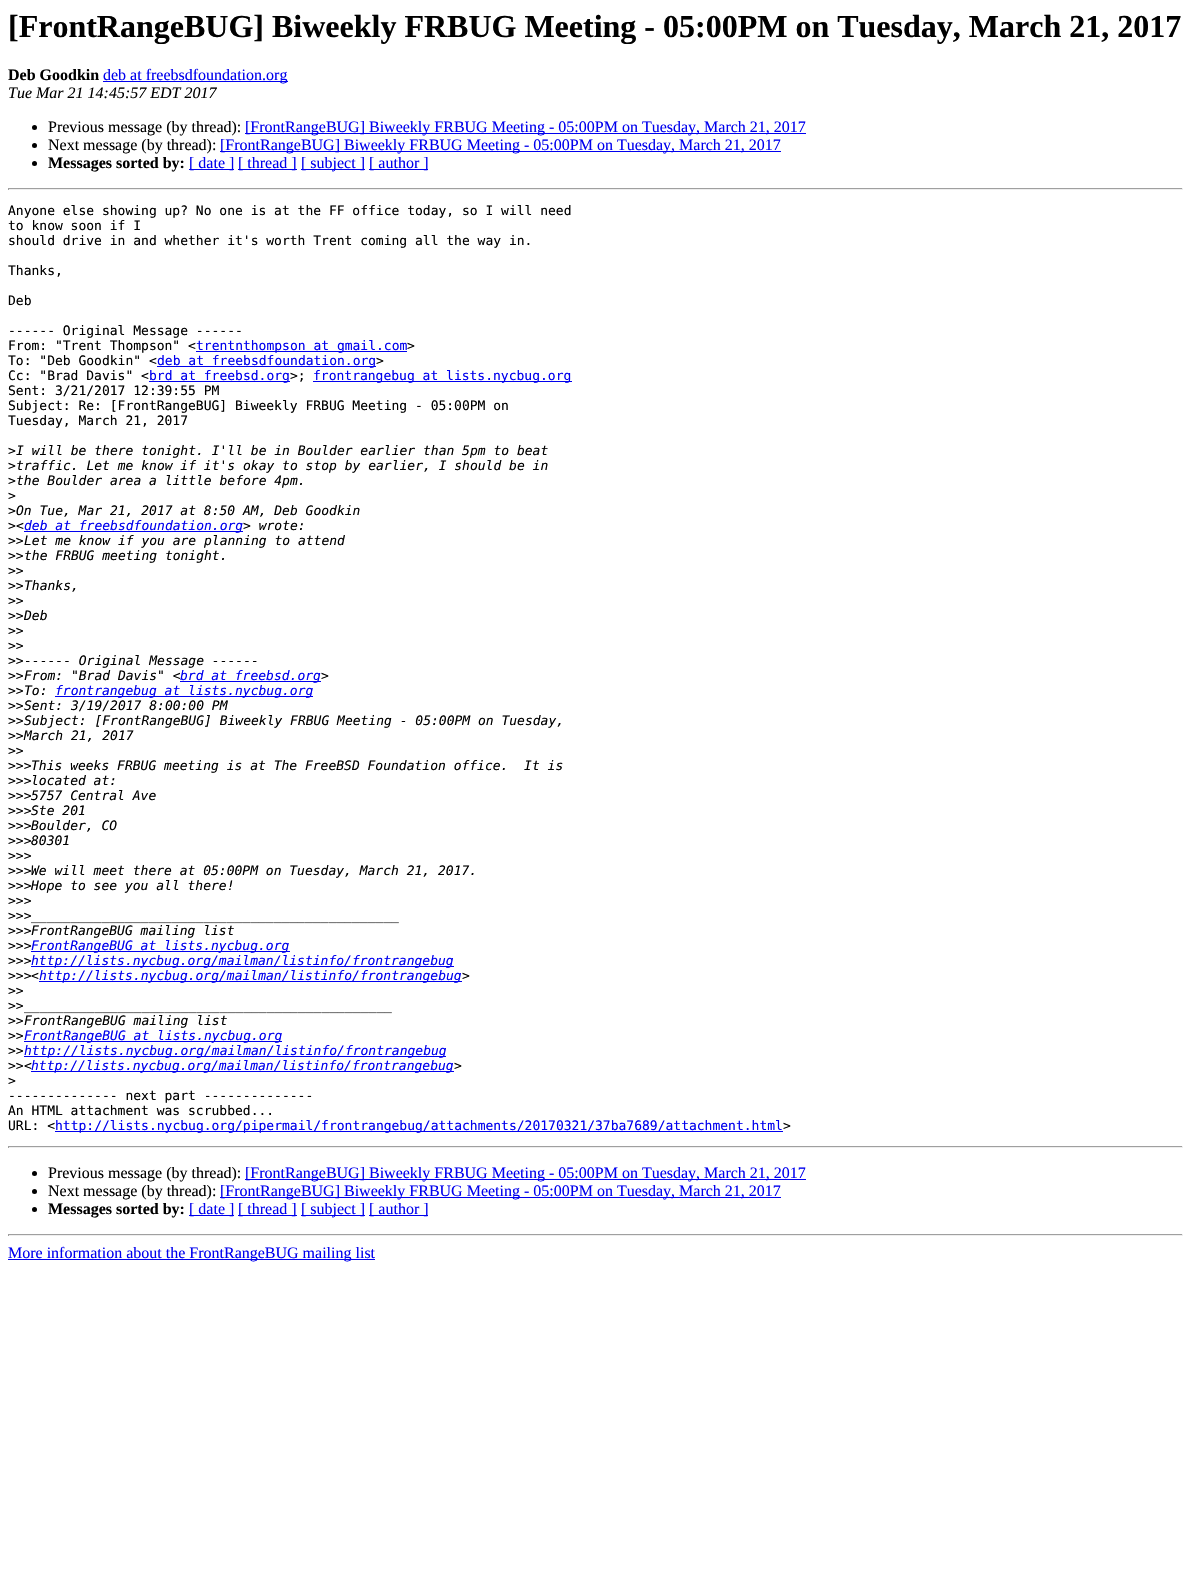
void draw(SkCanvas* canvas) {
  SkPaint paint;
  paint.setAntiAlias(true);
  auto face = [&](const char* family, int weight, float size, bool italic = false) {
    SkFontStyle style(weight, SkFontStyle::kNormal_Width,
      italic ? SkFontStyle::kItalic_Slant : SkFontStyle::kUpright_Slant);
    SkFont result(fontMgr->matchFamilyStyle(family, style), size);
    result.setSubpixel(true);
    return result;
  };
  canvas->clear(0xffffffff);
  paint.setColor(0xff0000ee);
  canvas->drawRect(SkRect::MakeXYWH(103, 81, 185, 1), paint);
  paint.setColor(0xff000000);
  canvas->drawCircle(34.5f, 127.5f, 2.5f, paint);
  paint.setColor(0xff0000ee);
  canvas->drawRect(SkRect::MakeXYWH(245, 133, 561, 1), paint);
  paint.setColor(0xff000000);
  canvas->drawCircle(34.5f, 145.5f, 2.5f, paint);
  paint.setColor(0xff0000ee);
  canvas->drawRect(SkRect::MakeXYWH(220, 151, 561, 1), paint);
  paint.setColor(0xff000000);
  canvas->drawCircle(34.5f, 163.5f, 2.5f, paint);
  {
    const struct { float x, y, w, h; SkColor color; } items[] = {
      {189, 169, 45, 1, 0xff0000ee},
      {238, 169, 59, 1, 0xff0000ee},
      {301, 169, 64, 1, 0xff0000ee},
      {369, 169, 59, 1, 0xff0000ee},
      {8, 188, 1175, 1, 0xff9f9f9f},
      {1182, 188, 1, 2, 0xffeeeeee},
      {8, 189, 1175, 1, 0xffeeeeee},
      {8, 188, 1, 2, 0xff9f9f9f},
      {196, 351, 211, 1, 0xff0000ee},
      {157, 366, 219, 1, 0xff0000ee},
      {149, 381, 141, 1, 0xff0000ee},
      {313, 381, 259, 1, 0xff0000ee},
      {24, 531, 219, 1, 0xff0000ee},
      {180, 681, 141, 1, 0xff0000ee},
      {55, 696, 258, 1, 0xff0000ee},
      {31, 951, 259, 1, 0xff0000ee},
      {31, 966, 423, 1, 0xff0000ee},
      {39, 981, 423, 1, 0xff0000ee},
      {24, 1041, 258, 1, 0xff0000ee},
      {24, 1056, 422, 1, 0xff0000ee},
      {31, 1071, 423, 1, 0xff0000ee},
      {55, 1131, 728, 1, 0xff0000ee},
      {8, 1146, 1175, 1, 0xff9f9f9f},
      {1182, 1146, 1, 2, 0xffeeeeee},
      {8, 1147, 1175, 1, 0xffeeeeee},
      {8, 1146, 1, 2, 0xff9f9f9f},
    };
    for (auto [x, y, w, h, color] : items) {
      paint.setColor(color);
      canvas->drawRect(SkRect::MakeXYWH(x, y, w, h), paint);
    }
  }
  paint.setColor(0xff000000);
  canvas->drawCircle(34.5f, 1173.5f, 2.5f, paint);
  paint.setColor(0xff0000ee);
  canvas->drawRect(SkRect::MakeXYWH(245, 1179, 561, 1), paint);
  paint.setColor(0xff000000);
  canvas->drawCircle(34.5f, 1191.5f, 2.5f, paint);
  paint.setColor(0xff0000ee);
  canvas->drawRect(SkRect::MakeXYWH(220, 1197, 561, 1), paint);
  paint.setColor(0xff000000);
  canvas->drawCircle(34.5f, 1209.5f, 2.5f, paint);
  {
    const struct { float x, y, w, h; SkColor color; } items[] = {
      {189, 1215, 45, 1, 0xff0000ee},
      {238, 1215, 59, 1, 0xff0000ee},
      {301, 1215, 64, 1, 0xff0000ee},
      {369, 1215, 59, 1, 0xff0000ee},
      {8, 1234, 1175, 1, 0xff9f9f9f},
      {1182, 1234, 1, 2, 0xffeeeeee},
      {8, 1235, 1175, 1, 0xffeeeeee},
      {8, 1234, 1, 2, 0xff9f9f9f},
      {8, 1259, 367, 1, 0xff0000ee},
    };
    for (auto [x, y, w, h, color] : items) {
      paint.setColor(color);
      canvas->drawRect(SkRect::MakeXYWH(x, y, w, h), paint);
    }
  }
  auto f0 = face("Liberation Serif", 700, 32);
  paint.setColor(0xff000000);
  canvas->drawString("[FrontRangeBUG] Biweekly FRBUG Meeting - 05:00PM on Tuesday, March 21, 2017", 8, 37, f0, paint);
  auto f1 = face("Liberation Serif", 700, 16);
  canvas->drawString("Deb Goodkin", 8, 80, f1, paint);
  auto f2 = face("Liberation Serif", 400, 16);
  paint.setColor(0xff0000ee);
  canvas->drawString("deb at freebsdfoundation.org", 103, 80, f2, paint);
  auto f3 = face("Liberation Serif", 400, 16, true);
  paint.setColor(0xff000000);
  canvas->drawString("Tue Mar 21 14:45:57 EDT 2017", 8, 98, f3, paint);
  canvas->drawString("Previous message (by thread):", 48, 132, f2, paint);
  paint.setColor(0xff0000ee);
  canvas->drawString("[FrontRangeBUG] Biweekly FRBUG Meeting - 05:00PM on Tuesday, March 21, 2017", 245, 132, f2, paint);
  paint.setColor(0xff000000);
  canvas->drawString("Next message (by thread):", 48, 150, f2, paint);
  paint.setColor(0xff0000ee);
  canvas->drawString("[FrontRangeBUG] Biweekly FRBUG Meeting - 05:00PM on Tuesday, March 21, 2017", 220, 150, f2, paint);
  paint.setColor(0xff000000);
  canvas->drawString("Messages sorted by:", 48, 168, f1, paint);
  paint.setColor(0xff0000ee);
  {
    const struct { const char* s; float x, y; } items[] = {
      {"[ date ]", 189, 168},
      {"[ thread ]", 238, 168},
      {"[ subject ]", 301, 168},
      {"[ author ]", 369, 168},
    };
    for (auto [s, x, y] : items) {
      canvas->drawString(s, x, y, f2, paint);
    }
  }
  auto f4 = face("DejaVu Sans Mono", 400, 13);
  paint.setColor(0xff000000);
  {
    const struct { const char* s; float x, y; } items[] = {
      {"Anyone else showing up? No one is at the FF office today, so I will need", 8, 215},
      {"to know soon if I", 8, 230},
      {"should drive in and whether it's worth Trent coming all the way in.", 8, 245},
      {"Thanks,", 8, 275},
      {"Deb", 8, 305},
      {"------ Original Message ------", 8, 335},
      {"From: \"Trent Thompson\" <", 8, 350},
    };
    for (auto [s, x, y] : items) {
      canvas->drawString(s, x, y, f4, paint);
    }
  }
  paint.setColor(0xff0000ee);
  canvas->drawString("trentnthompson at gmail.com", 196, 350, f4, paint);
  paint.setColor(0xff000000);
  canvas->drawString(">", 407, 350, f4, paint);
  canvas->drawString("To: \"Deb Goodkin\" <", 8, 365, f4, paint);
  paint.setColor(0xff0000ee);
  canvas->drawString("deb at freebsdfoundation.org", 157, 365, f4, paint);
  paint.setColor(0xff000000);
  canvas->drawString(">", 376, 365, f4, paint);
  canvas->drawString("Cc: \"Brad Davis\" <", 8, 380, f4, paint);
  paint.setColor(0xff0000ee);
  canvas->drawString("brd at freebsd.org", 149, 380, f4, paint);
  paint.setColor(0xff000000);
  canvas->drawString(">;", 290, 380, f4, paint);
  paint.setColor(0xff0000ee);
  canvas->drawString("frontrangebug at lists.nycbug.org", 313, 380, f4, paint);
  paint.setColor(0xff000000);
  {
    const struct { const char* s; float x, y; } items[] = {
      {"Sent: 3/21/2017 12:39:55 PM", 8, 395},
      {"Subject: Re: [FrontRangeBUG] Biweekly FRBUG Meeting - 05:00PM on", 8, 410},
      {"Tuesday, March 21, 2017", 8, 425},
      {">", 8, 455},
    };
    for (auto [s, x, y] : items) {
      canvas->drawString(s, x, y, f4, paint);
    }
  }
  auto f5 = face("DejaVu Sans Mono", 400, 13, true);
  canvas->drawString("I will be there tonight. I'll be in Boulder earlier than 5pm to beat", 16, 455, f5, paint);
  canvas->drawString(">", 8, 470, f4, paint);
  canvas->drawString("traffic. Let me know if it's okay to stop by earlier, I should be in", 16, 470, f5, paint);
  canvas->drawString(">", 8, 485, f4, paint);
  canvas->drawString("the Boulder area a little before 4pm.", 16, 485, f5, paint);
  canvas->drawString(">", 8, 500, f4, paint);
  canvas->drawString(">", 8, 515, f4, paint);
  canvas->drawString("On Tue, Mar 21, 2017 at 8:50 AM, Deb Goodkin", 16, 515, f5, paint);
  canvas->drawString(">", 8, 530, f4, paint);
  canvas->drawString("<", 16, 530, f5, paint);
  paint.setColor(0xff0000ee);
  canvas->drawString("deb at freebsdfoundation.org", 24, 530, f5, paint);
  paint.setColor(0xff000000);
  canvas->drawString("> wrote:", 243, 530, f5, paint);
  canvas->drawString(">>", 8, 545, f4, paint);
  canvas->drawString("Let me know if you are planning to attend", 24, 545, f5, paint);
  canvas->drawString(">>", 8, 560, f4, paint);
  canvas->drawString("the FRBUG meeting tonight.", 24, 560, f5, paint);
  canvas->drawString(">>", 8, 575, f4, paint);
  canvas->drawString(">>", 8, 590, f4, paint);
  canvas->drawString("Thanks,", 24, 590, f5, paint);
  canvas->drawString(">>", 8, 605, f4, paint);
  canvas->drawString(">>", 8, 620, f4, paint);
  canvas->drawString("Deb", 24, 620, f5, paint);
  {
    const struct { const char* s; float x, y; } items[] = {
      {">>", 8, 635},
      {">>", 8, 650},
      {">>", 8, 665},
    };
    for (auto [s, x, y] : items) {
      canvas->drawString(s, x, y, f4, paint);
    }
  }
  canvas->drawString("------ Original Message ------", 24, 665, f5, paint);
  canvas->drawString(">>", 8, 680, f4, paint);
  canvas->drawString("From: \"Brad Davis\" <", 24, 680, f5, paint);
  paint.setColor(0xff0000ee);
  canvas->drawString("brd at freebsd.org", 180, 680, f5, paint);
  paint.setColor(0xff000000);
  canvas->drawString(">", 321, 680, f5, paint);
  canvas->drawString(">>", 8, 695, f4, paint);
  canvas->drawString("To:", 24, 695, f5, paint);
  paint.setColor(0xff0000ee);
  canvas->drawString("frontrangebug at lists.nycbug.org", 55, 695, f5, paint);
  paint.setColor(0xff000000);
  canvas->drawString(">>", 8, 710, f4, paint);
  canvas->drawString("Sent: 3/19/2017 8:00:00 PM", 24, 710, f5, paint);
  canvas->drawString(">>", 8, 725, f4, paint);
  canvas->drawString("Subject: [FrontRangeBUG] Biweekly FRBUG Meeting - 05:00PM on Tuesday,", 24, 725, f5, paint);
  canvas->drawString(">>", 8, 740, f4, paint);
  canvas->drawString("March 21, 2017", 24, 740, f5, paint);
  canvas->drawString(">>", 8, 755, f4, paint);
  canvas->drawString(">>>", 8, 770, f4, paint);
  canvas->drawString("This weeks FRBUG meeting is at The FreeBSD Foundation office.  It is", 31, 770, f5, paint);
  canvas->drawString(">>>", 8, 785, f4, paint);
  canvas->drawString("located at:", 31, 785, f5, paint);
  canvas->drawString(">>>", 8, 800, f4, paint);
  canvas->drawString("5757 Central Ave", 31, 800, f5, paint);
  canvas->drawString(">>>", 8, 815, f4, paint);
  canvas->drawString("Ste 201", 31, 815, f5, paint);
  canvas->drawString(">>>", 8, 830, f4, paint);
  canvas->drawString("Boulder, CO", 31, 830, f5, paint);
  canvas->drawString(">>>", 8, 845, f4, paint);
  canvas->drawString("80301", 31, 845, f5, paint);
  canvas->drawString(">>>", 8, 860, f4, paint);
  canvas->drawString(">>>", 8, 875, f4, paint);
  canvas->drawString("We will meet there at 05:00PM on Tuesday, March 21, 2017.", 31, 875, f5, paint);
  canvas->drawString(">>>", 8, 890, f4, paint);
  canvas->drawString("Hope to see you all there!", 31, 890, f5, paint);
  canvas->drawString(">>>", 8, 905, f4, paint);
  canvas->drawString(">>>", 8, 920, f4, paint);
  canvas->drawString("_______________________________________________", 31, 920, f5, paint);
  canvas->drawString(">>>", 8, 935, f4, paint);
  canvas->drawString("FrontRangeBUG mailing list", 31, 935, f5, paint);
  canvas->drawString(">>>", 8, 950, f4, paint);
  paint.setColor(0xff0000ee);
  canvas->drawString("FrontRangeBUG at lists.nycbug.org", 31, 950, f5, paint);
  paint.setColor(0xff000000);
  canvas->drawString(">>>", 8, 965, f4, paint);
  paint.setColor(0xff0000ee);
  canvas->drawString("http://lists.nycbug.org/mailman/listinfo/frontrangebug", 31, 965, f5, paint);
  paint.setColor(0xff000000);
  canvas->drawString(">>>", 8, 980, f4, paint);
  canvas->drawString("<", 31, 980, f5, paint);
  paint.setColor(0xff0000ee);
  canvas->drawString("http://lists.nycbug.org/mailman/listinfo/frontrangebug", 39, 980, f5, paint);
  paint.setColor(0xff000000);
  canvas->drawString(">", 462, 980, f5, paint);
  canvas->drawString(">>", 8, 995, f4, paint);
  canvas->drawString(">>", 8, 1010, f4, paint);
  canvas->drawString("_______________________________________________", 24, 1010, f5, paint);
  canvas->drawString(">>", 8, 1025, f4, paint);
  canvas->drawString("FrontRangeBUG mailing list", 24, 1025, f5, paint);
  canvas->drawString(">>", 8, 1040, f4, paint);
  paint.setColor(0xff0000ee);
  canvas->drawString("FrontRangeBUG at lists.nycbug.org", 24, 1040, f5, paint);
  paint.setColor(0xff000000);
  canvas->drawString(">>", 8, 1055, f4, paint);
  paint.setColor(0xff0000ee);
  canvas->drawString("http://lists.nycbug.org/mailman/listinfo/frontrangebug", 24, 1055, f5, paint);
  paint.setColor(0xff000000);
  canvas->drawString(">>", 8, 1070, f4, paint);
  canvas->drawString("<", 24, 1070, f5, paint);
  paint.setColor(0xff0000ee);
  canvas->drawString("http://lists.nycbug.org/mailman/listinfo/frontrangebug", 31, 1070, f5, paint);
  paint.setColor(0xff000000);
  canvas->drawString(">", 454, 1070, f5, paint);
  {
    const struct { const char* s; float x, y; } items[] = {
      {">", 8, 1085},
      {"-------------- next part --------------", 8, 1100},
      {"An HTML attachment was scrubbed...", 8, 1115},
      {"URL: <", 8, 1130},
    };
    for (auto [s, x, y] : items) {
      canvas->drawString(s, x, y, f4, paint);
    }
  }
  paint.setColor(0xff0000ee);
  canvas->drawString("http://lists.nycbug.org/pipermail/frontrangebug/attachments/20170321/37ba7689/attachment.html", 55, 1130, f4, paint);
  paint.setColor(0xff000000);
  canvas->drawString(">", 783, 1130, f4, paint);
  canvas->drawString("Previous message (by thread):", 48, 1178, f2, paint);
  paint.setColor(0xff0000ee);
  canvas->drawString("[FrontRangeBUG] Biweekly FRBUG Meeting - 05:00PM on Tuesday, March 21, 2017", 245, 1178, f2, paint);
  paint.setColor(0xff000000);
  canvas->drawString("Next message (by thread):", 48, 1196, f2, paint);
  paint.setColor(0xff0000ee);
  canvas->drawString("[FrontRangeBUG] Biweekly FRBUG Meeting - 05:00PM on Tuesday, March 21, 2017", 220, 1196, f2, paint);
  paint.setColor(0xff000000);
  canvas->drawString("Messages sorted by:", 48, 1214, f1, paint);
  paint.setColor(0xff0000ee);
  {
    const struct { const char* s; float x, y; } items[] = {
      {"[ date ]", 189, 1214},
      {"[ thread ]", 238, 1214},
      {"[ subject ]", 301, 1214},
      {"[ author ]", 369, 1214},
      {"More information about the FrontRangeBUG mailing list", 8, 1258},
    };
    for (auto [s, x, y] : items) {
      canvas->drawString(s, x, y, f2, paint);
    }
  }
}
